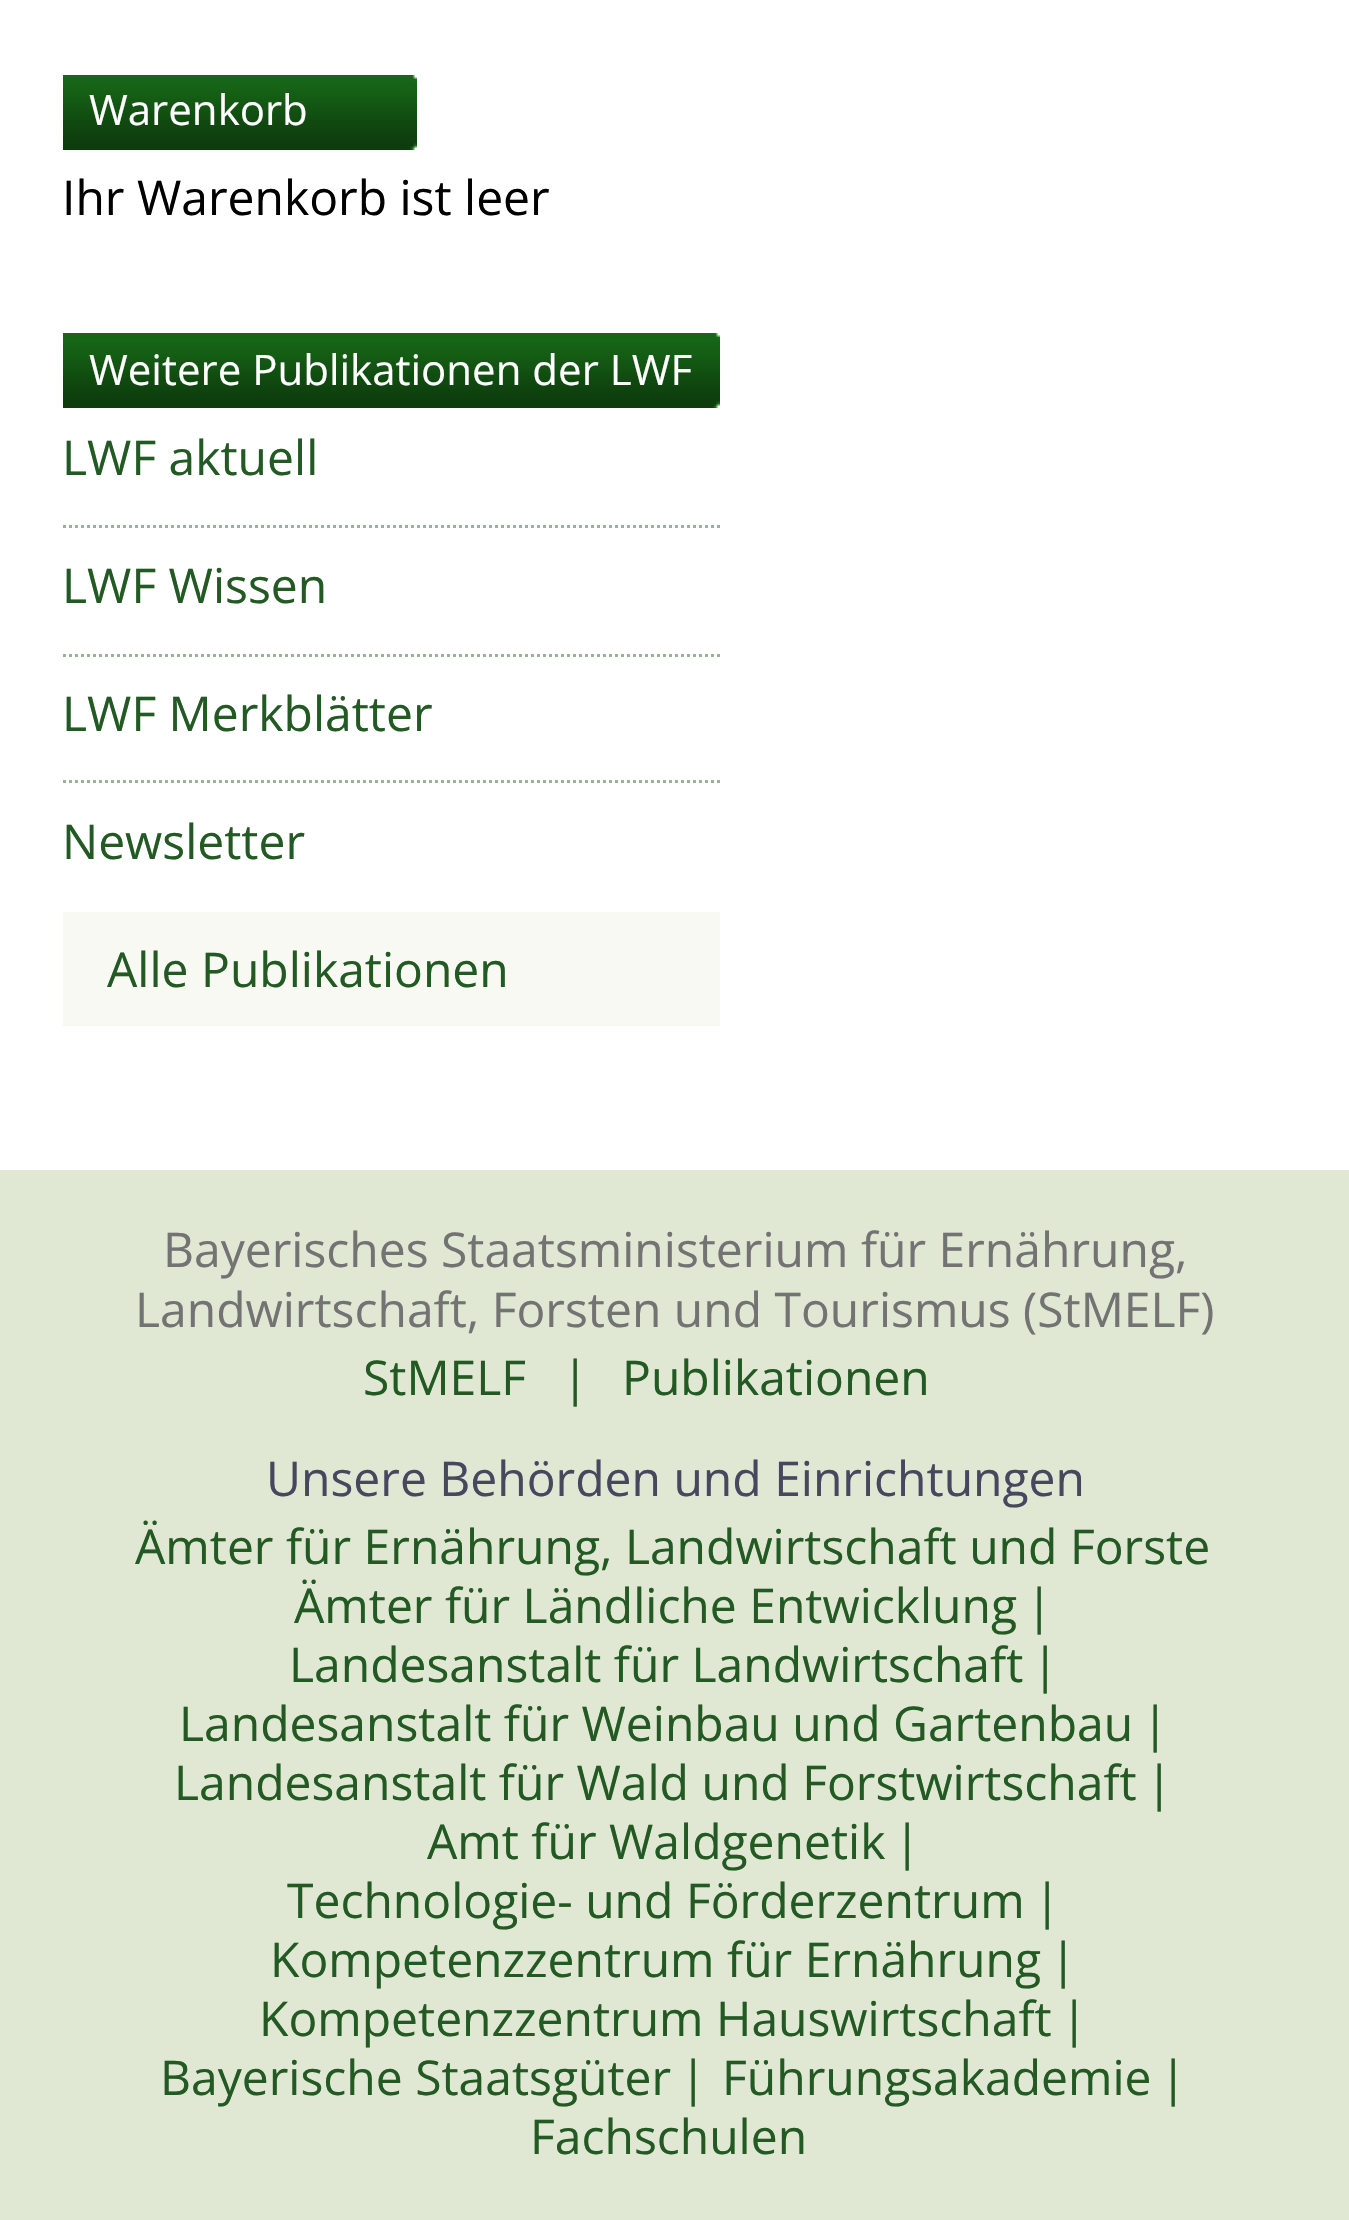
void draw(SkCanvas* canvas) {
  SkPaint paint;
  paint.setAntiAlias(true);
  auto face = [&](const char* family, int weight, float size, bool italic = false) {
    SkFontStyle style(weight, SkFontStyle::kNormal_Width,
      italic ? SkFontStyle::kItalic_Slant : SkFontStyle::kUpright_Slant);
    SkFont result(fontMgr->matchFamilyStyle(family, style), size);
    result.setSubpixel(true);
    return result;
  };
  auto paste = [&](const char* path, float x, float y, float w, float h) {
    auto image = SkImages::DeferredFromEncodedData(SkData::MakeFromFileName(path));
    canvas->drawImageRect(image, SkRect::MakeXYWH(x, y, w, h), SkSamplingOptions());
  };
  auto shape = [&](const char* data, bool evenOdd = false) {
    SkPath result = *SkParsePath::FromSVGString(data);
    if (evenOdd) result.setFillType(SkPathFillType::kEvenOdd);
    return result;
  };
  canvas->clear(0xffffffff);
  paste("img/1.png", 63, 75, 174, 75);
  paste("img/2.png", 237, 75, 180, 75);
  paste("img/1.png", 63, 333, 174, 75);
  paste("img/3.png", 237, 333, 483, 75);
  paint.setStroke(true);
  paint.setStrokeWidth(3);
  paint.setColor(0xff99b299);
  paint.setPathEffect(SkDashPathEffect::Make({{3, 3}}, 0));
  canvas->drawPath(shape("M63 526.5H720"), paint);
  paint.setPathEffect(nullptr);
  paint.setPathEffect(SkDashPathEffect::Make({{3, 3}}, 0));
  canvas->drawPath(shape("M63 655.5H720"), paint);
  paint.setPathEffect(nullptr);
  paint.setPathEffect(SkDashPathEffect::Make({{3, 3}}, 0));
  canvas->drawPath(shape("M63 781.5H720"), paint);
  paint.setPathEffect(nullptr);
  paint.setStroke(false);
  paint.setColor(0xfff7f9f2);
  canvas->drawRect(SkRect::MakeXYWH(63, 912, 657, 114), paint);
  paint.setColor(0xffe0e8d4);
  canvas->drawRect(SkRect::MakeXYWH(0, 1170, 1349, 1050), paint);
  auto f0 = face("Open Sans", 400, 42);
  paint.setColor(0xffffffff);
  canvas->drawString("Warenkorb", 89, 125, f0, paint);
  auto f1 = face("Open Sans", 400, 48);
  paint.setColor(0xff000000);
  canvas->drawString("Ihr Warenkorb ist leer", 62, 215, f1, paint);
  paint.setColor(0xffffffff);
  canvas->drawString("Weitere Publikationen der LWF", 89, 385, f0, paint);
  paint.setColor(0xff235a23);
  {
    const struct { const char* s; float x, y; } items[] = {
      {"LWF aktuell", 62, 475},
      {"LWF Wissen", 62, 603},
      {"LWF Merkblätter", 62, 731},
      {"Newsletter", 62, 859},
      {"Alle Publikationen", 107, 987},
    };
    for (auto [s, x, y] : items) {
      canvas->drawString(s, x, y, f1, paint);
    }
  }
  paint.setColor(0xff737373);
  canvas->drawString("Bayerisches Staatsministerium für Ernährung,", 163, 1267, f1, paint);
  canvas->drawString("Landwirtschaft, Forsten und Tourismus (StMELF)", 135, 1327, f1, paint);
  paint.setColor(0xff235a23);
  {
    const struct { const char* s; float x, y; } items[] = {
      {"StMELF", 363, 1395},
      {"|", 562, 1395},
      {"Publikationen", 622, 1395},
    };
    for (auto [s, x, y] : items) {
      canvas->drawString(s, x, y, f1, paint);
    }
  }
  paint.setColor(0xff47485e);
  canvas->drawString("Unsere Behörden und Einrichtungen", 266, 1496, f1, paint);
  paint.setColor(0xff235a23);
  {
    const struct { const char* s; float x, y; } items[] = {
      {"Ämter für Ernährung, Landwirtschaft und Forste", 135, 1564},
      {"Ämter für Ländliche Entwicklung", 294, 1623},
      {"|", 1026, 1623},
      {"Landesanstalt für Landwirtschaft", 289, 1682},
      {"|", 1032, 1682},
      {"Landesanstalt für Weinbau und Gartenbau", 179, 1741},
      {"|", 1142, 1741},
      {"Landesanstalt für Wald und Forstwirtschaft", 174, 1800},
      {"|", 1146, 1800},
      {"Amt für Waldgenetik", 427, 1859},
      {"|", 894, 1859},
      {"Technologie- und Förderzentrum", 287, 1918},
      {"|", 1034, 1918},
      {"Kompetenzzentrum für Ernährung", 270, 1977},
      {"|", 1050, 1977},
      {"Kompetenzzentrum Hauswirtschaft", 259, 2036},
      {"|", 1061, 2036},
      {"Bayerische Staatsgüter", 160, 2095},
      {"|", 680, 2095},
      {"Führungsakademie", 722, 2095},
      {"|", 1160, 2095},
      {"Fachschulen", 530, 2154},
    };
    for (auto [s, x, y] : items) {
      canvas->drawString(s, x, y, f1, paint);
    }
  }
}
